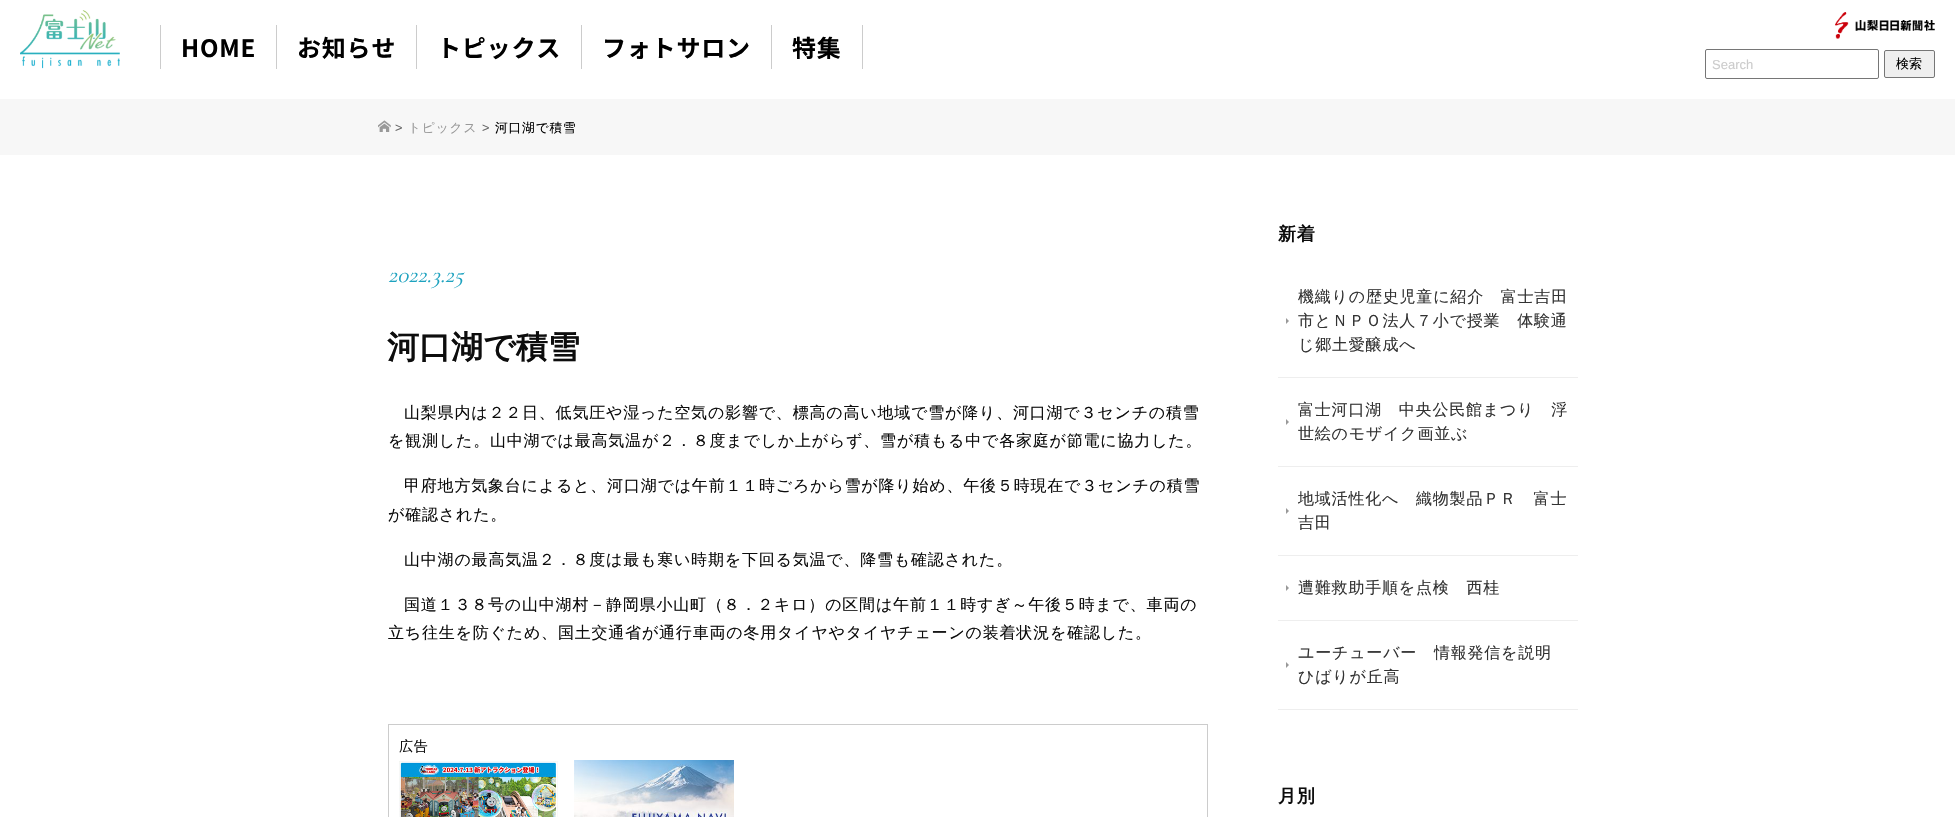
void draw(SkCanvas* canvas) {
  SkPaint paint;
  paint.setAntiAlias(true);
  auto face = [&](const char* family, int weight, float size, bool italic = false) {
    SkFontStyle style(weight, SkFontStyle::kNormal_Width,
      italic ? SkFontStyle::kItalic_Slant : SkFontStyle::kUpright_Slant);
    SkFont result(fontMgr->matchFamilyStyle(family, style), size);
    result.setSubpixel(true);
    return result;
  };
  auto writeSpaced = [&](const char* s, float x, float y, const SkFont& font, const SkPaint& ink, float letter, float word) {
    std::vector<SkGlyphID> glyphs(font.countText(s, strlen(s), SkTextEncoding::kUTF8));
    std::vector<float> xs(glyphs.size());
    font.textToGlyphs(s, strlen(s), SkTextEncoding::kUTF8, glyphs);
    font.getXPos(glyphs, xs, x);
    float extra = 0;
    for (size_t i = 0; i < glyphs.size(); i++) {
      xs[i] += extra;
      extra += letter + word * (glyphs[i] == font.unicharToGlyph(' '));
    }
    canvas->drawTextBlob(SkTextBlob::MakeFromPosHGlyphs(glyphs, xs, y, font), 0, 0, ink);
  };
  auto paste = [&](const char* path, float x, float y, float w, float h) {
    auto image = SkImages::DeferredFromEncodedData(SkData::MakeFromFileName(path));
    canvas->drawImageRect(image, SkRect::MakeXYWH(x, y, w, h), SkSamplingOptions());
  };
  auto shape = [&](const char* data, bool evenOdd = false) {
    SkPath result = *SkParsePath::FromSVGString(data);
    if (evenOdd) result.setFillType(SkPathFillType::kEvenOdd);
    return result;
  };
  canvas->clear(0xffffffff);
  paste("img/1.png", 20, 10, 100, 59);
  {
    const struct { float x, y, w, h; SkColor color; } items[] = {
      {160, 25, 1, 44, 0xffcccccc},
      {276, 25, 1, 44, 0xffcccccc},
      {416, 25, 1, 44, 0xffcccccc},
      {581, 25, 1, 44, 0xffcccccc},
      {862, 25, 1, 44, 0xffcccccc},
      {771, 25, 1, 44, 0xffcccccc},
    };
    for (auto [x, y, w, h, color] : items) {
      paint.setColor(color);
      canvas->drawRect(SkRect::MakeXYWH(x, y, w, h), paint);
    }
  }
  paste("img/2.png", 1835, 12, 100, 27);
  paint.setStroke(true);
  paint.setStrokeWidth(1);
  paint.setColor(0xff767676);
  canvas->drawRoundRect(SkRect::MakeXYWH(1705.5f, 49.5f, 173, 29), 1.5f, 1.5f, paint);
  paint.setStroke(false);
  paint.setColor(0xffefefef);
  canvas->drawRoundRect(SkRect::MakeXYWH(1884.5f, 50.5f, 50, 27), 1.5f, 1.5f, paint);
  paint.setStroke(true);
  paint.setColor(0xff767676);
  canvas->drawRoundRect(SkRect::MakeXYWH(1884.5f, 50.5f, 50, 27), 1.5f, 1.5f, paint);
  paint.setStroke(false);
  paint.setColor(0xfff7f7f7);
  canvas->drawRect(SkRect::MakeXYWH(0, 99, 1955, 56), paint);
  paste("img/3.png", 378, 120, 13, 12);
  paint.setStroke(true);
  paint.setColor(0xffcccccc);
  canvas->drawRect(SkRect::MakeXYWH(388.5f, 724.5f, 819, 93), paint);
  paste("img/4.png", 399, 761, 159, 56);
  paste("img/5.png", 574, 760, 160, 57);
  paint.setStroke(false);
  paint.setColor(0xffeeeeee);
  canvas->drawRect(SkRect::MakeXYWH(1278, 377, 300, 1), paint);
  paint.setColor(0xff999999);
  canvas->drawPath(shape("M1286 324V318L1289 321Z"), paint);
  paint.setColor(0xffeeeeee);
  canvas->drawRect(SkRect::MakeXYWH(1278, 466, 300, 1), paint);
  paint.setColor(0xff999999);
  canvas->drawPath(shape("M1286 425V419L1289 422Z"), paint);
  paint.setColor(0xffeeeeee);
  canvas->drawRect(SkRect::MakeXYWH(1278, 555, 300, 1), paint);
  paint.setColor(0xff999999);
  canvas->drawPath(shape("M1286 514V508L1289 511Z"), paint);
  paint.setColor(0xffeeeeee);
  canvas->drawRect(SkRect::MakeXYWH(1278, 620, 300, 1), paint);
  paint.setColor(0xff999999);
  canvas->drawPath(shape("M1286 591V585L1289 588Z"), paint);
  paint.setColor(0xffeeeeee);
  canvas->drawRect(SkRect::MakeXYWH(1278, 709, 300, 1), paint);
  paint.setColor(0xff999999);
  canvas->drawPath(shape("M1286 668V662L1289 665Z"), paint);
  auto f0 = face("Noto Sans JP", 700, 24);
  paint.setColor(0xff000000);
  {
    const struct { const char* s; float x, y; } items[] = {
      {"HOME", 181, 57},
      {"お知らせ", 297, 57},
      {"トピックス", 437, 57},
      {"フォトサロン", 602, 57},
      {"特集", 792, 57},
    };
    for (auto [s, x, y] : items) {
      writeSpaced(s, x, y, f0, paint, 0.8f, 0);
    }
  }
  auto f1 = face("Liberation Sans", 400, 13);
  paint.setColor(0xffcccccc);
  canvas->drawString("Search", 1712, 69, f1, paint);
  auto f2 = face("WenQuanYi Zen Hei", 500, 13);
  paint.setColor(0xff000000);
  canvas->drawString("検索", 1896, 68, f2, paint);
  auto f3 = face("Liberation Sans", 400, 12.75f);
  paint.setColor(0xff666666);
  writeSpaced(">", 395, 132, f3, paint, 0.8f, 0);
  auto f4 = face("WenQuanYi Zen Hei", 500, 12.75f);
  paint.setColor(0xff999999);
  writeSpaced("トピックス", 408, 132, f4, paint, 0.8f, 0);
  paint.setColor(0xff666666);
  writeSpaced(">", 482, 132, f3, paint, 0.8f, 0);
  paint.setColor(0xff000000);
  writeSpaced("河口湖で積雪", 495, 132, f4, paint, 0.8f, 0);
  auto f5 = face("Cormorant Garamond", 400, 23, true);
  paint.setColor(0xff1da2bf);
  canvas->drawString("2022.3.25", 388, 282, f5, paint);
  auto f6 = face("WenQuanYi Zen Hei", 700, 32);
  paint.setColor(0xff0d0d0d);
  canvas->drawString("河口湖で積雪", 387, 358, f6, paint);
  auto f7 = face("WenQuanYi Zen Hei", 500, 16);
  {
    const struct { const char* s; float x, y; } items[] = {
      {"山梨県内は２２日、低気圧や湿った空気の影響で、標高の高い地域で雪が降り、河口湖で３センチの積雪", 404, 418},
      {"を観測した。山中湖では最高気温が２．８度までしか上がらず、雪が積もる中で各家庭が節電に協力した。", 388, 446},
      {"甲府地方気象台によると、河口湖では午前１１時ごろから雪が降り始め、午後５時現在で３センチの積雪", 404, 491},
      {"が確認された。", 388, 520},
      {"山中湖の最高気温２．８度は最も寒い時期を下回る気温で、降雪も確認された。", 404, 565},
      {"国道１３８号の山中湖村－静岡県小山町（８．２キロ）の区間は午前１１時すぎ～午後５時まで、車両の", 404, 610},
      {"立ち往生を防ぐため、国土交通省が通行車両の冬用タイヤやタイヤチェーンの装着状況を確認した。", 388, 638},
    };
    for (auto [s, x, y] : items) {
      writeSpaced(s, x, y, f7, paint, 0.8f, 0);
    }
  }
  auto f8 = face("WenQuanYi Zen Hei", 500, 14);
  writeSpaced("広告", 399, 751, f8, paint, 0.8f, 0);
  auto f9 = face("WenQuanYi Zen Hei", 700, 18);
  writeSpaced("新着", 1278, 240, f9, paint, 0.8f, 0);
  paint.setColor(0xff333333);
  {
    const struct { const char* s; float x, y; } items[] = {
      {"機織りの歴史児童に紹介　富士吉田", 1298, 302},
      {"市とＮＰＯ法人７小で授業　体験通", 1298, 326},
      {"じ郷土愛醸成へ", 1298, 350},
      {"富士河口湖　中央公民館まつり　浮", 1298, 415},
      {"世絵のモザイク画並ぶ", 1298, 439},
      {"地域活性化へ　織物製品ＰＲ　富士", 1298, 504},
      {"吉田", 1298, 528},
      {"遭難救助手順を点検　西桂", 1298, 593},
      {"ユーチューバー　情報発信を説明", 1298, 658},
      {"ひばりが丘高", 1298, 682},
    };
    for (auto [s, x, y] : items) {
      writeSpaced(s, x, y, f7, paint, 0.8f, 0);
    }
  }
  paint.setColor(0xff0d0d0d);
  writeSpaced("月別", 1278, 802, f9, paint, 0.8f, 0);
}
